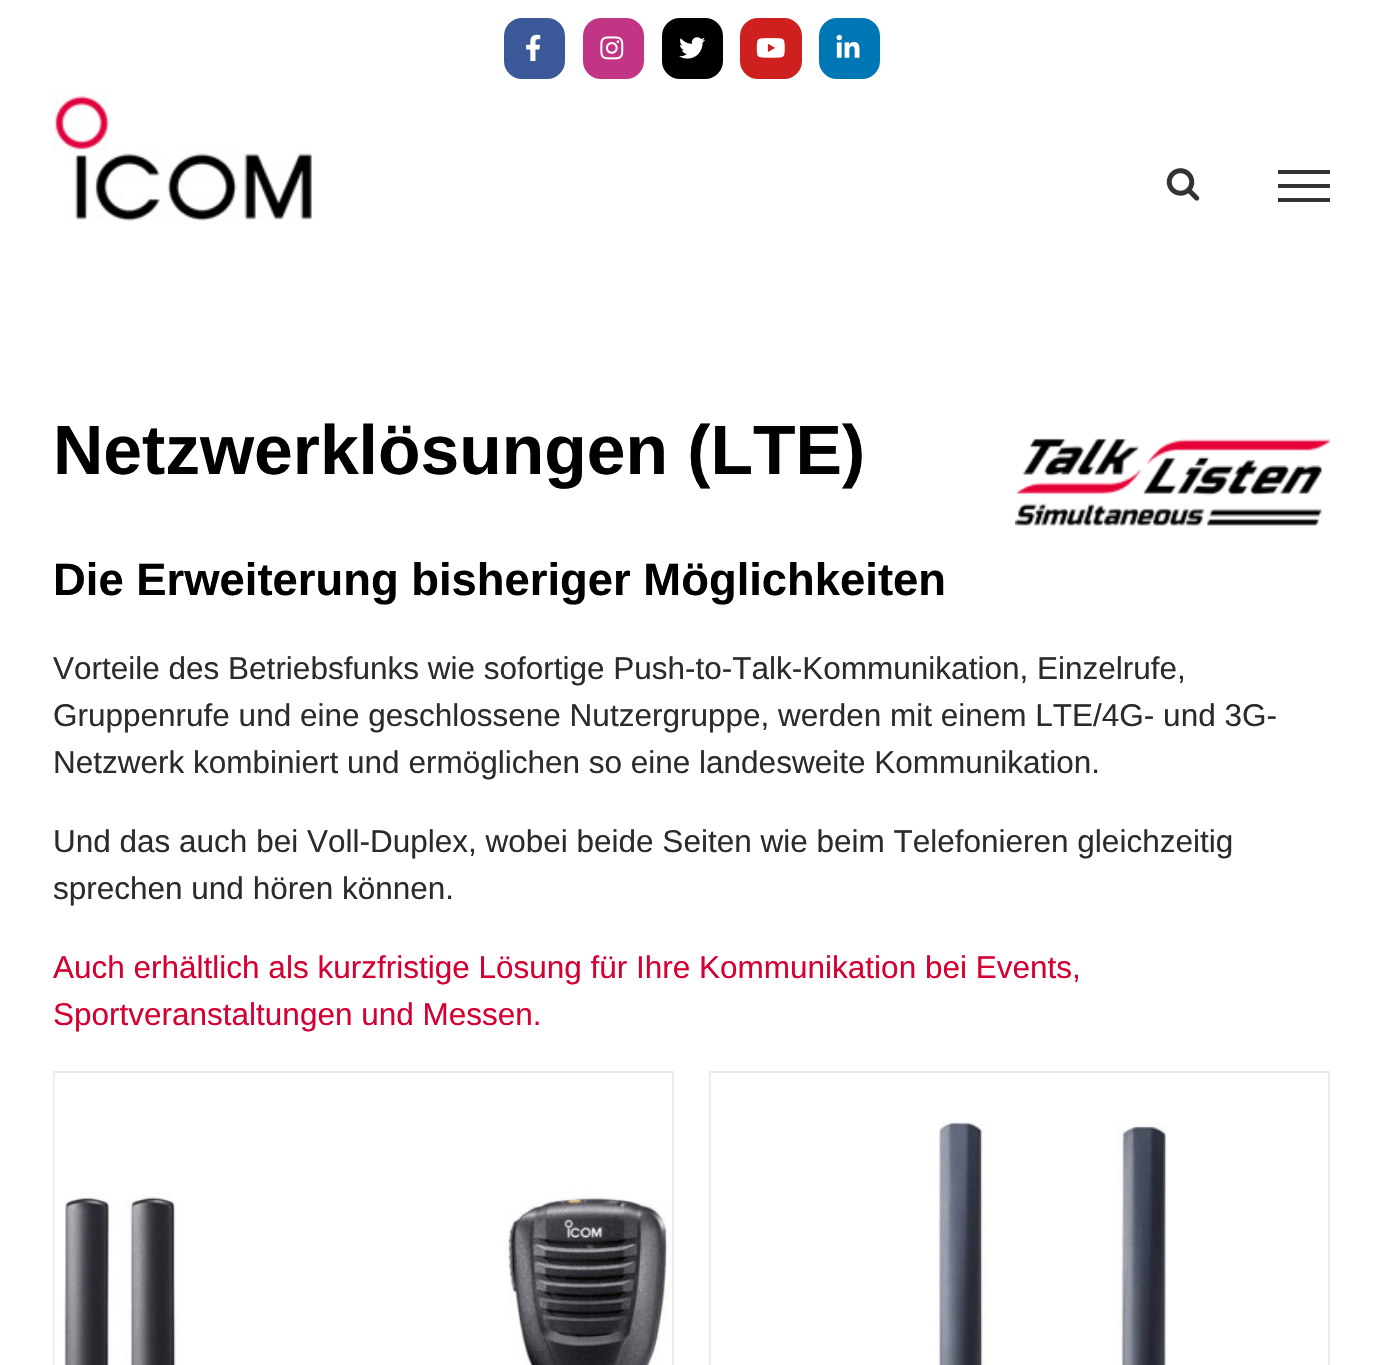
void draw(SkCanvas* canvas) {
  SkPaint paint;
  paint.setAntiAlias(true);
  auto face = [&](const char* family, int weight, float size, bool italic = false) {
    SkFontStyle style(weight, SkFontStyle::kNormal_Width,
      italic ? SkFontStyle::kItalic_Slant : SkFontStyle::kUpright_Slant);
    SkFont result(fontMgr->matchFamilyStyle(family, style), size);
    result.setSubpixel(true);
    return result;
  };
  auto paste = [&](const char* path, float x, float y, float w, float h) {
    auto image = SkImages::DeferredFromEncodedData(SkData::MakeFromFileName(path));
    canvas->drawImageRect(image, SkRect::MakeXYWH(x, y, w, h), SkSamplingOptions());
  };
  canvas->clear(0xffffffff);
  paint.setColor(0xff3b5998);
  canvas->drawRoundRect(SkRect::MakeXYWH(505, 19, 59, 59), 17, 17, paint);
  paint.setStroke(true);
  paint.setStrokeWidth(2);
  canvas->drawRoundRect(SkRect::MakeXYWH(505, 19, 59, 59), 17, 17, paint);
  paste("img/1.png", 526, 34, 15, 27);
  paint.setStroke(false);
  paint.setColor(0xffc13584);
  canvas->drawRoundRect(SkRect::MakeXYWH(584, 19, 59, 59), 17, 17, paint);
  paint.setStroke(true);
  canvas->drawRoundRect(SkRect::MakeXYWH(584, 19, 59, 59), 17, 17, paint);
  paste("img/2.png", 600, 36, 24, 24);
  paint.setStroke(false);
  paint.setColor(0xff000000);
  canvas->drawRoundRect(SkRect::MakeXYWH(663, 19, 59, 59), 17, 17, paint);
  paint.setStroke(true);
  canvas->drawRoundRect(SkRect::MakeXYWH(663, 19, 59, 59), 17, 17, paint);
  paste("img/3.png", 679, 37, 27, 22);
  paint.setStroke(false);
  paint.setColor(0xffcd201f);
  canvas->drawRoundRect(SkRect::MakeXYWH(741, 19, 60, 59), 17, 17, paint);
  paint.setStroke(true);
  canvas->drawRoundRect(SkRect::MakeXYWH(741, 19, 60, 59), 17, 17, paint);
  paste("img/4.png", 756, 38, 29, 20);
  paint.setStroke(false);
  paint.setColor(0xff0077b5);
  canvas->drawRoundRect(SkRect::MakeXYWH(820, 19, 59, 59), 17, 17, paint);
  paint.setStroke(true);
  canvas->drawRoundRect(SkRect::MakeXYWH(820, 19, 59, 59), 17, 17, paint);
  paste("img/5.png", 836, 34, 24, 24);
  paste("img/6.png", 53, 94, 262, 127);
  paste("img/7.png", 1166, 168, 34, 33);
  paint.setStroke(false);
  {
    const struct { float x, y, w, h; SkColor color; } items[] = {
      {1278, 170, 52, 4, 0xff333333},
      {1278, 184, 52, 4, 0xff333333},
      {1278, 198, 52, 4, 0xff333333},
    };
    for (auto [x, y, w, h, color] : items) {
      paint.setColor(color);
      canvas->drawRect(SkRect::MakeXYWH(x, y, w, h), paint);
    }
  }
  paste("img/8.png", 1015, 438, 315, 88);
  {
    const struct { float x, y, w, h; SkColor color; } items[] = {
      {53, 1071, 621, 2, 0xffebeaea},
      {672, 1071, 2, 294, 0xffebeaea},
      {53, 1071, 2, 294, 0xffebeaea},
    };
    for (auto [x, y, w, h, color] : items) {
      paint.setColor(color);
      canvas->drawRect(SkRect::MakeXYWH(x, y, w, h), paint);
    }
  }
  paste("img/9.png", 54, 1073, 614, 292);
  {
    const struct { float x, y, w, h; SkColor color; } items[] = {
      {709, 1071, 621, 2, 0xffebeaea},
      {1328, 1071, 2, 294, 0xffebeaea},
      {709, 1071, 2, 294, 0xffebeaea},
    };
    for (auto [x, y, w, h, color] : items) {
      paint.setColor(color);
      canvas->drawRect(SkRect::MakeXYWH(x, y, w, h), paint);
    }
  }
  paste("img/10.png", 710, 1073, 457, 292);
  auto f0 = face("Liberation Sans", 700, 69.6f);
  paint.setColor(0xff000000);
  canvas->drawString("Netzwerklösungen (LTE)", 53, 474, f0, paint);
  auto f1 = face("Liberation Sans", 700, 45.4f);
  canvas->drawString("Die Erweiterung bisheriger Möglichkeiten", 53, 595, f1, paint);
  auto f2 = face("Liberation Sans", 400, 31.5f);
  paint.setColor(0xff2b2b2b);
  {
    const struct { const char* s; float x, y; } items[] = {
      {"Vorteile des Betriebsfunks wie sofortige Push-to-Talk-Kommunikation, Einzelrufe,", 53, 679},
      {"Gruppenrufe und eine geschlossene Nutzergruppe, werden mit einem LTE/4G- und 3G-", 53, 726},
      {"Netzwerk kombiniert und ermöglichen so eine landesweite Kommunikation.", 53, 773},
      {"Und das auch bei Voll-Duplex, wobei beide Seiten wie beim Telefonieren gleichzeitig", 53, 852},
      {"sprechen und hören können.", 53, 899},
    };
    for (auto [s, x, y] : items) {
      canvas->drawString(s, x, y, f2, paint);
    }
  }
  paint.setColor(0xffd50032);
  canvas->drawString("Auch erhältlich als kurzfristige Lösung für Ihre Kommunikation bei Events,", 53, 978, f2, paint);
  canvas->drawString("Sportveranstaltungen und Messen.", 53, 1025, f2, paint);
}
